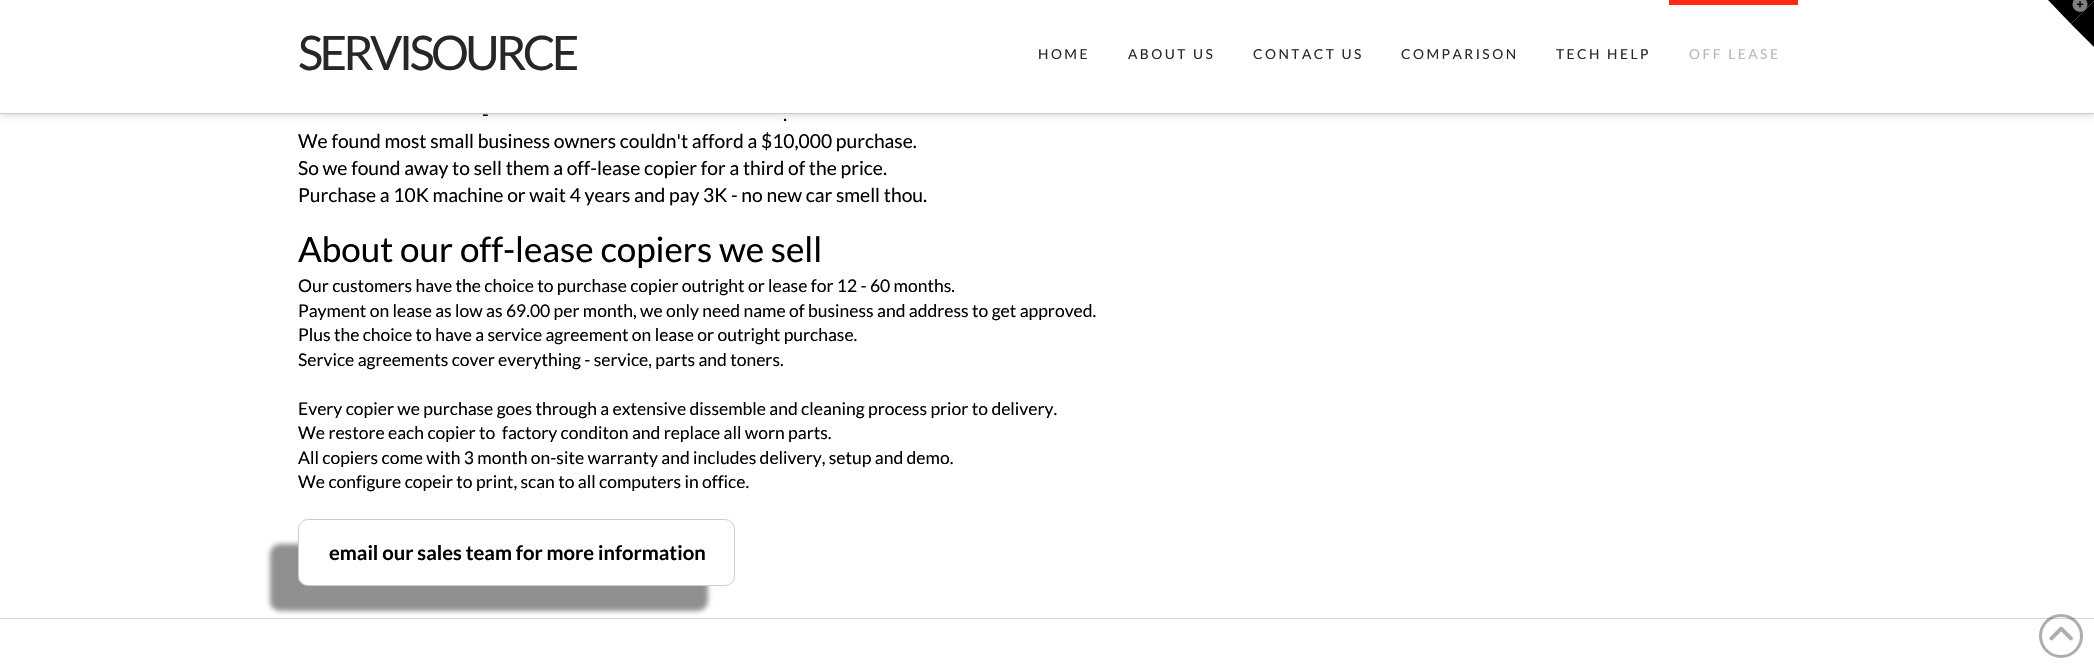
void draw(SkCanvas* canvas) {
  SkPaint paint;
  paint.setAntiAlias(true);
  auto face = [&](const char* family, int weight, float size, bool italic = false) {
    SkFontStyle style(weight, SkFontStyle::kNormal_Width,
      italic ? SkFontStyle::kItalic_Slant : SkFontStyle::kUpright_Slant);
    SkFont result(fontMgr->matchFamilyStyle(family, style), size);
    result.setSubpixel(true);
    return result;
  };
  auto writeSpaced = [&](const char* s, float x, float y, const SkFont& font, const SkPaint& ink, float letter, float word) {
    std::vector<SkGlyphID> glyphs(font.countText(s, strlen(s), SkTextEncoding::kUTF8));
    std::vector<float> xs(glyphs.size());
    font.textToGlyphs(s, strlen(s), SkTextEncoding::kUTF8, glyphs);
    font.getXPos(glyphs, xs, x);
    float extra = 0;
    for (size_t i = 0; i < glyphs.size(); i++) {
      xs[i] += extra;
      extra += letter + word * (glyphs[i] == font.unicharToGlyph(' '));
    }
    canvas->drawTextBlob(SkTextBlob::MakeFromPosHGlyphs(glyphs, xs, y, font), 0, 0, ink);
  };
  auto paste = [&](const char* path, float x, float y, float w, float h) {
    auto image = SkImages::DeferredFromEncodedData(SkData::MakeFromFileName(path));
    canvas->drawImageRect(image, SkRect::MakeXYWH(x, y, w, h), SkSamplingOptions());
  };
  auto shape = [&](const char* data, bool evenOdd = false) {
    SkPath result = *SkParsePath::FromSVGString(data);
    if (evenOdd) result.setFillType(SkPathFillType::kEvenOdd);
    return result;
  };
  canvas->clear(0xffffffff);
  paint.setColor(0x21000000);
  paint.setMaskFilter(SkMaskFilter::MakeBlur(kNormal_SkBlurStyle, 3));
  canvas->drawRect(SkRect::MakeXYWH(0, 3, 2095, 113), paint);
  paint.setMaskFilter(nullptr);
  paint.setColor(0xffffffff);
  canvas->drawRect(SkRect::MakeXYWH(0, 0, 2094, 113), paint);
  paint.setColor(0xff000000);
  canvas->drawPath(shape("M2048 0H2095L2071 24Z"), paint);
  canvas->drawPath(shape("M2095 0V48L2071 24Z"), paint);
  paste("img/1.png", 2072, 0, 16, 12);
  {
    const struct { float x, y, w, h; SkColor color; } items[] = {
      {0, 113, 2094, 1, 0xffcccccc},
      {1669, 0, 129, 5, 0xffff2a13},
      {0, 618, 2094, 1, 0xffd4d4d4},
    };
    for (auto [x, y, w, h, color] : items) {
      paint.setColor(color);
      canvas->drawRect(SkRect::MakeXYWH(x, y, w, h), paint);
    }
  }
  paint.setColor(0xbf6d6969);
  paint.setMaskFilter(SkMaskFilter::MakeBlur(kNormal_SkBlurStyle, 2.5f));
  canvas->drawRoundRect(SkRect::MakeXYWH(270, 544, 438, 67), 10, 10, paint);
  paint.setMaskFilter(nullptr);
  paint.setColor(0xffffffff);
  canvas->drawRoundRect(SkRect::MakeXYWH(298, 519, 437, 67), 10, 10, paint);
  paint.setStroke(true);
  paint.setStrokeWidth(1);
  paint.setColor(0x52636262);
  canvas->drawRoundRect(SkRect::MakeXYWH(298.5f, 519.5f, 436, 66), 9.5f, 9.5f, paint);
  paint.setStrokeWidth(3);
  paint.setColor(0x61272727);
  canvas->drawCircle(2061, 636, 20.5f, paint);
  paste("img/2.png", 2049, 626, 24, 15);
  auto f0 = face("Lato", 400, 47.5f);
  paint.setStroke(false);
  paint.setColor(0xff272727);
  writeSpaced("SERVISOURCE", 298, 70, f0, paint, -3.75f, 0);
  auto f1 = face("Lato", 400, 13.75f);
  {
    const struct { const char* s; float x, y; } items[] = {
      {"HOME", 1038, 59},
      {"ABOUT US", 1128, 59},
      {"CONTACT US", 1253, 59},
      {"COMPARISON", 1401, 59},
      {"TECH HELP", 1556, 59},
    };
    for (auto [s, x, y] : items) {
      writeSpaced(s, x, y, f1, paint, 2.5f, 0);
    }
  }
  paint.setColor(0xffb7b7b7);
  writeSpaced("OFF LEASE", 1689, 59, f1, paint, 2.5f, 0);
  auto f2 = face("Lato", 400, 19.25f);
  paint.setColor(0xff000000);
  {
    const struct { const char* s; float x, y; } items[] = {
      {"-", 482, 121},
      {".", 783, 121},
      {"We found most small business owners couldn't afford a $10,000 purchase.", 298, 148},
      {"So we found away to sell them a off-lease copier for a third of the price.", 298, 175},
      {"Purchase a 10K machine or wait 4 years and pay 3K - no new car smell thou.", 298, 202},
    };
    for (auto [s, x, y] : items) {
      canvas->drawString(s, x, y, f2, paint);
    }
  }
  auto f3 = face("Lato", 400, 35);
  canvas->drawString("About our off-lease copiers we sell", 298, 262, f3, paint);
  auto f4 = face("Lato", 400, 17.5f);
  {
    const struct { const char* s; float x, y; } items[] = {
      {"Our customers have the choice to purchase copier outright or lease for 12 - 60 months.", 298, 292},
      {"Payment on lease as low as 69.00 per month, we only need name of business and address to get approved.", 298, 317},
      {"Plus the choice to have a service agreement on lease or outright purchase.", 298, 341},
      {"Service agreements cover everything - service, parts and toners.", 298, 366},
      {"Every copier we purchase goes through a extensive dissemble and cleaning process prior to delivery.", 298, 415},
      {"We restore each copier to  factory conditon and replace all worn parts.", 298, 439},
      {"All copiers come with 3 month on-site warranty and includes delivery, setup and demo.", 298, 464},
      {"We configure copeir to print, scan to all computers in office.", 298, 488},
    };
    for (auto [s, x, y] : items) {
      canvas->drawString(s, x, y, f4, paint);
    }
  }
  auto f5 = face("Lato", 700, 20.2f);
  canvas->drawString("email our sales team for more information", 329, 560, f5, paint);
}
